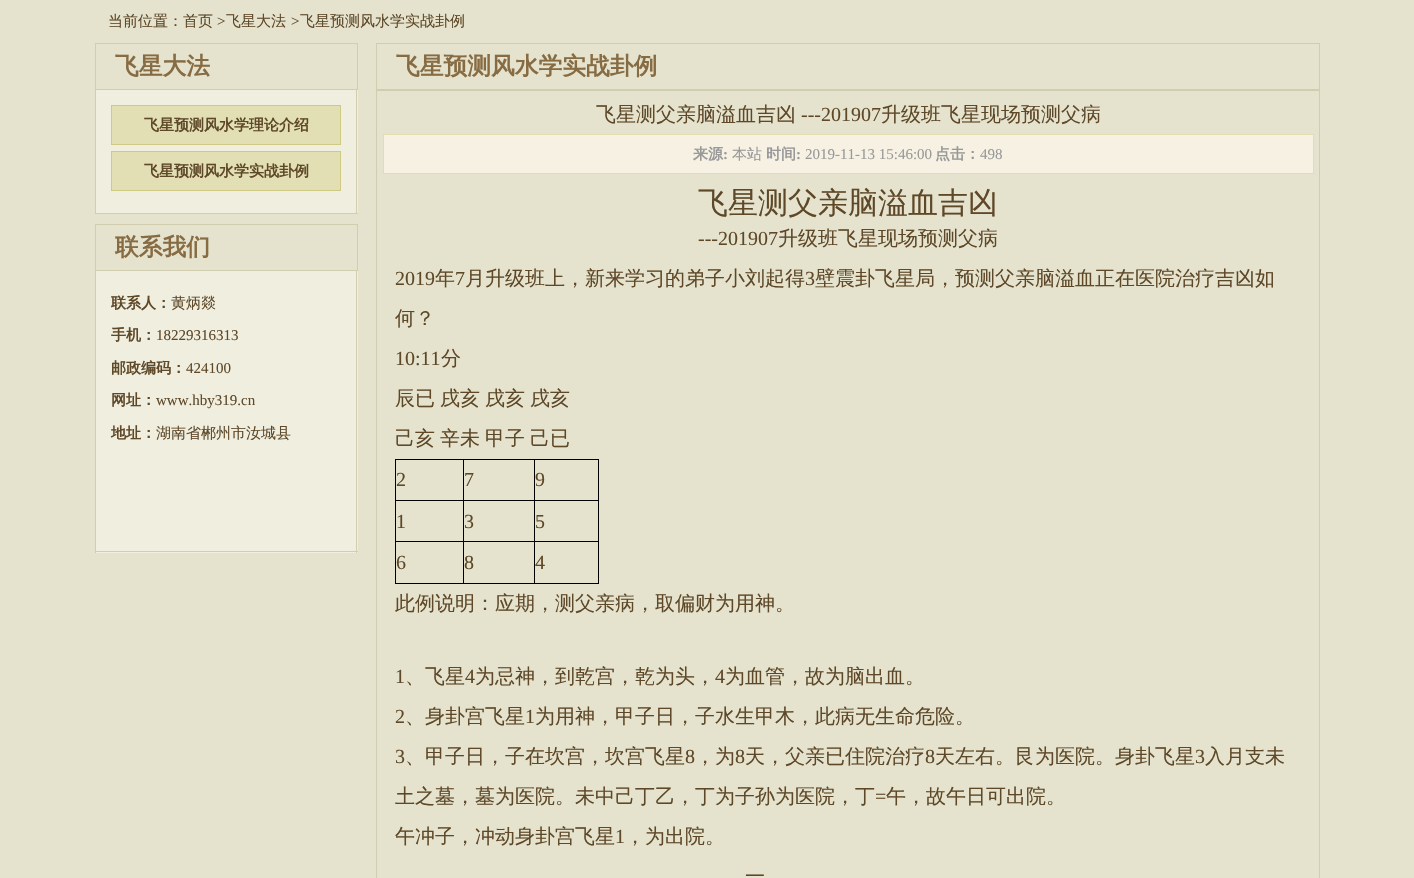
void draw(SkCanvas* canvas) {
  SkPaint paint;
  paint.setAntiAlias(true);
  auto face = [&](const char* family, int weight, float size, bool italic = false) {
    SkFontStyle style(weight, SkFontStyle::kNormal_Width,
      italic ? SkFontStyle::kItalic_Slant : SkFontStyle::kUpright_Slant);
    SkFont result(fontMgr->matchFamilyStyle(family, style), size);
    result.setSubpixel(true);
    return result;
  };
  canvas->clear(0xffe5e3ce);
  paint.setStroke(true);
  paint.setStrokeWidth(1);
  paint.setColor(0xffd0ceae);
  canvas->drawRect(SkRect::MakeXYWH(95.5f, 43.5f, 262, 46), paint);
  paint.setStroke(false);
  {
    const struct { float x, y, w, h; SkColor color; } items[] = {
      {96, 90, 262, 123, 0xffefeedf},
      {356, 90, 1, 124, 0xffd0ceae},
      {95, 213, 263, 1, 0xffd0ceae},
      {95, 90, 1, 124, 0xffd0ceae},
    };
    for (auto [x, y, w, h, color] : items) {
      paint.setColor(color);
      canvas->drawRect(SkRect::MakeXYWH(x, y, w, h), paint);
    }
  }
  paint.setColor(0xffe3dfb4);
  canvas->drawRect(SkRect::MakeXYWH(111.5f, 105.5f, 229, 39), paint);
  paint.setStroke(true);
  paint.setColor(0xffd0c983);
  canvas->drawRect(SkRect::MakeXYWH(111.5f, 105.5f, 229, 39), paint);
  paint.setStroke(false);
  paint.setColor(0xffe3dfb4);
  canvas->drawRect(SkRect::MakeXYWH(111.5f, 151.5f, 229, 39), paint);
  paint.setStroke(true);
  paint.setColor(0xffd0c983);
  canvas->drawRect(SkRect::MakeXYWH(111.5f, 151.5f, 229, 39), paint);
  paint.setColor(0xffd0ceae);
  canvas->drawRect(SkRect::MakeXYWH(95.5f, 224.5f, 262, 46), paint);
  paint.setStroke(false);
  {
    const struct { float x, y, w, h; SkColor color; } items[] = {
      {96, 271, 262, 282, 0xffefeedf},
      {356, 271, 1, 282, 0xffd0ceae},
      {95, 551, 263, 1, 0xffd0ceae},
      {95, 271, 1, 282, 0xffd0ceae},
    };
    for (auto [x, y, w, h, color] : items) {
      paint.setColor(color);
      canvas->drawRect(SkRect::MakeXYWH(x, y, w, h), paint);
    }
  }
  paint.setStroke(true);
  canvas->drawRect(SkRect::MakeXYWH(376.5f, 43.5f, 943, 46), paint);
  canvas->drawRect(SkRect::MakeXYWH(376.5f, 90.5f, 943, 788), paint);
  paint.setStroke(false);
  paint.setColor(0xfff6f1e3);
  canvas->drawRect(SkRect::MakeXYWH(383.5f, 134.5f, 930, 39), paint);
  paint.setStroke(true);
  paint.setColor(0xffe4ddb4);
  canvas->drawRect(SkRect::MakeXYWH(383.5f, 134.5f, 930, 39), paint);
  paint.setStroke(false);
  {
    const struct { float x, y, w, h; SkColor color; } items[] = {
      {534, 459, 65, 1, 0xff000000},
      {534, 500, 65, 1, 0xff000000},
      {534, 541, 65, 1, 0xff000000},
      {598, 541, 1, 43, 0xff000000},
      {534, 583, 65, 1, 0xff000000},
      {534, 541, 1, 43, 0xff000000},
      {463, 541, 72, 1, 0xff000000},
      {534, 500, 1, 43, 0xff000000},
      {463, 500, 72, 1, 0xff000000},
      {534, 459, 1, 42, 0xff000000},
      {463, 459, 72, 1, 0xff000000},
      {463, 583, 72, 1, 0xff000000},
      {463, 541, 1, 43, 0xff000000},
      {395, 541, 69, 1, 0xff000000},
      {463, 500, 1, 43, 0xff000000},
      {395, 500, 69, 1, 0xff000000},
      {463, 459, 1, 42, 0xff000000},
      {395, 459, 69, 1, 0xff000000},
      {395, 583, 69, 1, 0xff000000},
      {395, 541, 1, 43, 0xff000000},
      {395, 500, 1, 43, 0xff000000},
      {395, 459, 1, 42, 0xff000000},
      {598, 500, 1, 43, 0xff000000},
      {598, 459, 1, 42, 0xff000000},
    };
    for (auto [x, y, w, h, color] : items) {
      paint.setColor(color);
      canvas->drawRect(SkRect::MakeXYWH(x, y, w, h), paint);
    }
  }
  auto f0 = face("WenQuanYi Zen Hei", 500, 15);
  paint.setColor(0xff5e4828);
  canvas->drawString("当前位置：首页", 108, 26, f0, paint);
  auto f1 = face("Liberation Serif", 400, 15, true);
  canvas->drawString(">", 216, 26, f1, paint);
  canvas->drawString("飞星大法", 226, 26, f0, paint);
  canvas->drawString(">", 290, 26, f1, paint);
  canvas->drawString("飞星预测风水学实战卦例", 300, 26, f0, paint);
  auto f2 = face("WenQuanYi Zen Hei", 700, 23.75f);
  paint.setColor(0xff876c43);
  canvas->drawString("飞星大法", 115, 74, f2, paint);
  auto f3 = face("WenQuanYi Zen Hei", 700, 15);
  paint.setColor(0xff5e4828);
  canvas->drawString("飞星预测风水学理论介绍", 144, 130, f3, paint);
  canvas->drawString("飞星预测风水学实战卦例", 144, 176, f3, paint);
  paint.setColor(0xff876c43);
  canvas->drawString("联系我们", 115, 255, f2, paint);
  paint.setColor(0xff5e4828);
  canvas->drawString("联系人：", 111, 308, f3, paint);
  canvas->drawString("黄炳燚", 171, 308, f0, paint);
  canvas->drawString("手机：", 111, 340, f3, paint);
  auto f4 = face("Liberation Serif", 400, 15);
  canvas->drawString("18229316313", 156, 340, f4, paint);
  canvas->drawString("邮政编码：", 111, 373, f3, paint);
  canvas->drawString("424100", 186, 373, f4, paint);
  canvas->drawString("网址：", 111, 405, f3, paint);
  canvas->drawString("www.hby319.cn", 156, 405, f4, paint);
  canvas->drawString("地址：", 111, 438, f3, paint);
  canvas->drawString("湖南省郴州市汝城县", 156, 438, f0, paint);
  paint.setColor(0xff876c43);
  canvas->drawString("飞星预测风水学实战卦例", 396, 74, f2, paint);
  auto f5 = face("WenQuanYi Zen Hei", 500, 20);
  paint.setColor(0xff5e4828);
  canvas->drawString("飞星测父亲脑溢血吉凶", 596, 121, f5, paint);
  auto f6 = face("Liberation Serif", 400, 20);
  canvas->drawString("---201907", 801, 121, f6, paint);
  canvas->drawString("升级班飞星现场预测父病", 881, 121, f5, paint);
  paint.setColor(0xff999999);
  canvas->drawString("来源", 693, 159, f3, paint);
  auto f7 = face("Liberation Serif", 700, 15);
  canvas->drawString(":", 723, 159, f7, paint);
  canvas->drawString("本站", 732, 159, f0, paint);
  canvas->drawString("时间", 766, 159, f3, paint);
  canvas->drawString(":", 796, 159, f7, paint);
  canvas->drawString("2019-11-13 15:46:00", 805, 159, f4, paint);
  canvas->drawString("点击：", 935, 159, f3, paint);
  canvas->drawString("498", 980, 159, f4, paint);
  auto f8 = face("WenQuanYi Zen Hei", 500, 30);
  paint.setColor(0xff5e4828);
  canvas->drawString("飞星测父亲脑溢血吉凶", 698, 213, f8, paint);
  canvas->drawString("---201907", 698, 245, f6, paint);
  canvas->drawString("升级班飞星现场预测父病", 778, 245, f5, paint);
  canvas->drawString("2019", 395, 285, f6, paint);
  canvas->drawString("年", 435, 285, f5, paint);
  canvas->drawString("7", 455, 285, f6, paint);
  canvas->drawString("月升级班上，新来学习的弟子小刘起得", 465, 285, f5, paint);
  canvas->drawString("3", 805, 285, f6, paint);
  canvas->drawString("壁震卦飞星局，预测父亲脑溢血正在医院治疗吉凶如", 815, 285, f5, paint);
  canvas->drawString("何？", 395, 325, f5, paint);
  canvas->drawString("10:11", 395, 365, f6, paint);
  {
    const struct { const char* s; float x, y; } items[] = {
      {"分", 441, 365},
      {"辰已", 395, 405},
      {"戌亥", 440, 405},
      {"戌亥", 485, 405},
      {"戌亥", 530, 405},
      {"己亥", 395, 445},
      {"辛未", 440, 445},
      {"甲子", 485, 445},
      {"己已", 530, 445},
    };
    for (auto [s, x, y] : items) {
      canvas->drawString(s, x, y, f5, paint);
    }
  }
  {
    const struct { const char* s; float x, y; } items[] = {
      {"2", 396, 486},
      {"7", 464, 486},
      {"9", 535, 486},
      {"1", 396, 528},
      {"3", 464, 528},
      {"5", 535, 528},
      {"6", 396, 569},
      {"8", 464, 569},
      {"4", 535, 569},
    };
    for (auto [s, x, y] : items) {
      canvas->drawString(s, x, y, f6, paint);
    }
  }
  canvas->drawString("此例说明：应期，测父亲病，取偏财为用神。", 395, 610, f5, paint);
  canvas->drawString("1", 395, 683, f6, paint);
  canvas->drawString("、飞星", 405, 683, f5, paint);
  canvas->drawString("4", 465, 683, f6, paint);
  canvas->drawString("为忌神，到乾宫，乾为头，", 475, 683, f5, paint);
  canvas->drawString("4", 715, 683, f6, paint);
  canvas->drawString("为血管，故为脑出血。", 725, 683, f5, paint);
  canvas->drawString("2", 395, 723, f6, paint);
  canvas->drawString("、身卦宫飞星", 405, 723, f5, paint);
  canvas->drawString("1", 525, 723, f6, paint);
  canvas->drawString("为用神，甲子日，子水生甲木，此病无生命危险。", 535, 723, f5, paint);
  canvas->drawString("3", 395, 763, f6, paint);
  canvas->drawString("、甲子日，子在坎宫，坎宫飞星", 405, 763, f5, paint);
  canvas->drawString("8", 685, 763, f6, paint);
  canvas->drawString("，为", 695, 763, f5, paint);
  canvas->drawString("8", 735, 763, f6, paint);
  canvas->drawString("天，父亲已住院治疗", 745, 763, f5, paint);
  canvas->drawString("8", 925, 763, f6, paint);
  canvas->drawString("天左右。艮为医院。身卦飞星", 935, 763, f5, paint);
  canvas->drawString("3", 1195, 763, f6, paint);
  canvas->drawString("入月支未", 1205, 763, f5, paint);
  canvas->drawString("土之墓，墓为医院。未中己丁乙，丁为子孙为医院，丁", 395, 803, f5, paint);
  canvas->drawString("=", 875, 803, f6, paint);
  canvas->drawString("午，故午日可出院。", 886, 803, f5, paint);
  canvas->drawString("午冲子，冲动身卦宫飞星", 395, 843, f5, paint);
  canvas->drawString("1", 615, 843, f6, paint);
  canvas->drawString("，为出院。", 625, 843, f5, paint);
  canvas->drawString("一", 745, 883, f5, paint);
}
